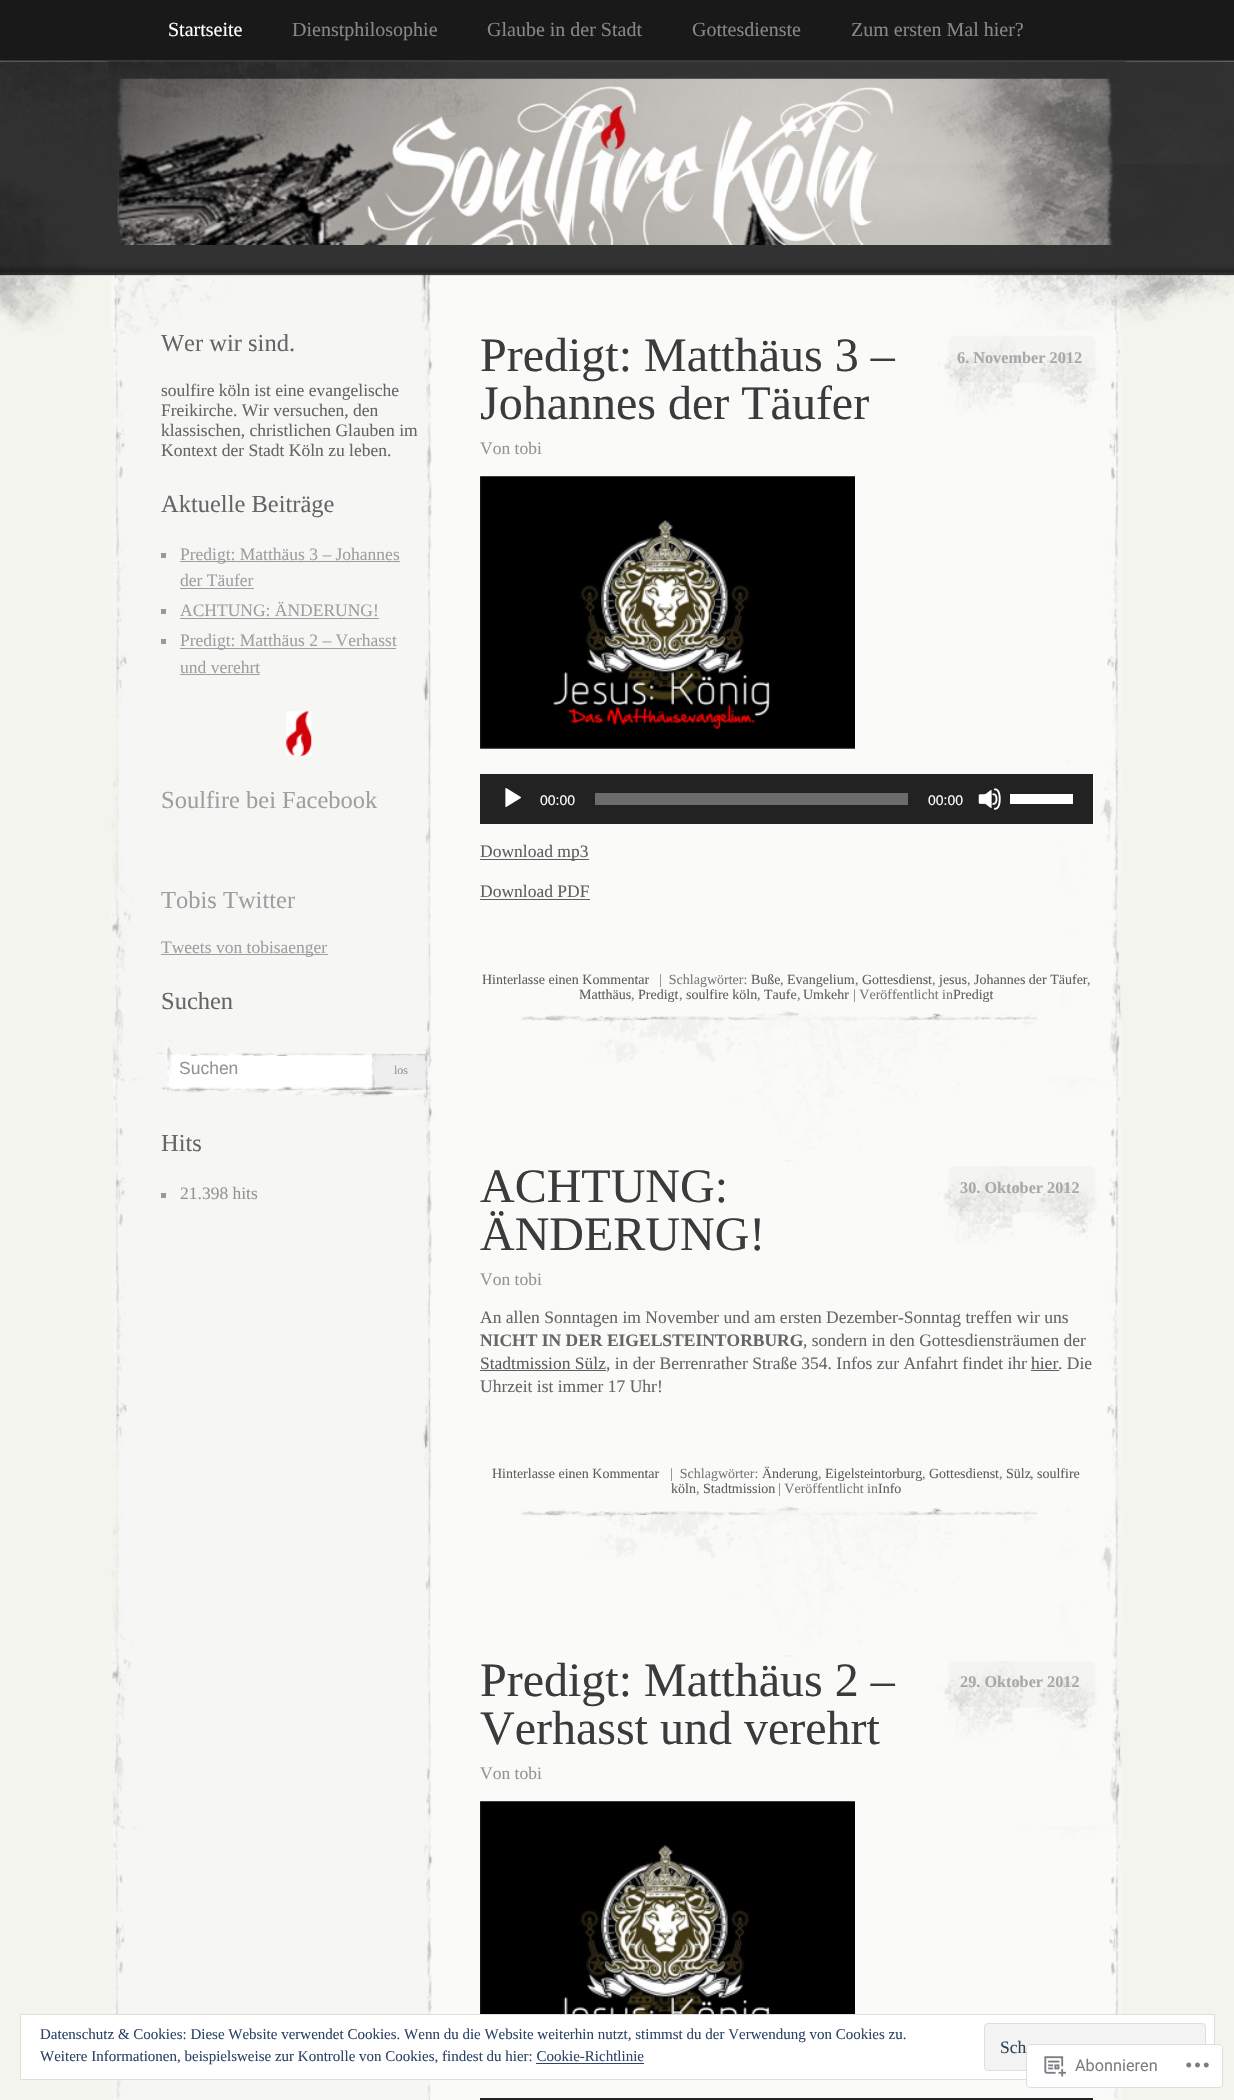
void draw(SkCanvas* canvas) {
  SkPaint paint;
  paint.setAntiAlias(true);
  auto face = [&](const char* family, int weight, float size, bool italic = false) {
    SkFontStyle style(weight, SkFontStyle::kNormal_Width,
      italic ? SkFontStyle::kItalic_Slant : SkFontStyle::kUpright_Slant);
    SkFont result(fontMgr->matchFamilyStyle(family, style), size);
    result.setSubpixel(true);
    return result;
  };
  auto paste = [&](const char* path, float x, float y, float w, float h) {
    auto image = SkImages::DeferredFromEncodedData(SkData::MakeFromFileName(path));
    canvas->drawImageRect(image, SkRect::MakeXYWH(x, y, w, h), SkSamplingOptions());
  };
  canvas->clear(0xfff3f4ee);
  paint.setColor(0xff191919);
  canvas->drawRect(SkRect::MakeXYWH(0, 0, 1234, 60), paint);
  paint.setColor(0xff373737);
  canvas->drawRect(SkRect::MakeXYWH(0, 60, 1234, 1), paint);
  paste("img/1.png", 0, 61, 1234, 214);
  paste("img/3.png", 117, 78, 997, 167);
  paste("img/4.png", 111, 331, 1011, 1769);
  paste("img/7.png", 938, 331, 161, 83);
  paste("img/2.png", 0, 61, 1234, 271);
  {
    const struct { float x, y, w, h; SkColor color; } items[] = {
      {161, 553, 5, 5, 0xff999999},
      {180, 561, 220, 1, 0xff9f9f9f},
      {180, 588, 74, 1, 0xff9f9f9f},
      {161, 609, 5, 5, 0xff999999},
      {180, 618, 199, 1, 0xff9f9f9f},
      {161, 639, 5, 5, 0xff999999},
      {180, 648, 216, 1, 0xff9f9f9f},
      {180, 674, 80, 1, 0xff9f9f9f},
    };
    for (auto [x, y, w, h, color] : items) {
      paint.setColor(color);
      canvas->drawRect(SkRect::MakeXYWH(x, y, w, h), paint);
    }
  }
  paste("img/5.png", 286, 711, 26, 46);
  canvas->drawRect(SkRect::MakeXYWH(161, 954, 167, 1), paint);
  paste("img/6.png", 158, 1039, 274, 59);
  paint.setColor(0xffffffff);
  canvas->drawRect(SkRect::MakeXYWH(190, 1056, 170, 2), paint);
  paint.setColor(0xff999999);
  canvas->drawRect(SkRect::MakeXYWH(161, 1193, 5, 5), paint);
  paste("img/8.png", 480, 476, 375, 273);
  paint.setColor(0xff222222);
  canvas->drawRect(SkRect::MakeXYWH(480, 774, 613, 50), paint);
  paste("img/9.png", 505, 788, 16, 19);
  paint.setColor(0xff6b6b6b);
  canvas->drawRect(SkRect::MakeXYWH(595, 793, 313, 12), paint);
  paste("img/10.png", 978, 788, 23, 22);
  {
    const struct { float x, y, w, h; SkColor color; } items[] = {
      {1010, 794, 63, 10, 0xffffffff},
      {480, 859, 109, 1, 0xff5f5f5f},
      {480, 899, 110, 1, 0xff5f5f5f},
    };
    for (auto [x, y, w, h, color] : items) {
      paint.setColor(color);
      canvas->drawRect(SkRect::MakeXYWH(x, y, w, h), paint);
    }
  }
  paste("img/11.png", 521, 1011, 517, 151);
  paste("img/12.png", 938, 1166, 161, 78);
  canvas->drawRect(SkRect::MakeXYWH(480, 1370, 126, 1), paint);
  canvas->drawRect(SkRect::MakeXYWH(1031, 1370, 28, 1), paint);
  paste("img/13.png", 521, 1506, 517, 151);
  paste("img/14.png", 938, 1661, 161, 78);
  paste("img/15.png", 480, 1801, 375, 213);
  paint.setColor(0xff222222);
  canvas->drawRect(SkRect::MakeXYWH(480, 2098, 613, 2), paint);
  paint.setColor(0xffffffff);
  canvas->drawRect(SkRect::MakeXYWH(20.5f, 2014.5f, 1194, 65), paint);
  paint.setStroke(true);
  paint.setStrokeWidth(1);
  paint.setColor(0xffdedede);
  canvas->drawRect(SkRect::MakeXYWH(20.5f, 2014.5f, 1194, 65), paint);
  paint.setStroke(false);
  paint.setColor(0xfff3f3f3);
  canvas->drawRoundRect(SkRect::MakeXYWH(984.5f, 2023.5f, 221, 47), 3.5f, 3.5f, paint);
  paint.setStroke(true);
  paint.setColor(0xffdedede);
  canvas->drawRoundRect(SkRect::MakeXYWH(984.5f, 2023.5f, 221, 47), 3.5f, 3.5f, paint);
  paint.setStroke(false);
  paint.setColor(0xff2e4467);
  canvas->drawRect(SkRect::MakeXYWH(536, 2063, 108, 1), paint);
  auto f0 = face("Liberation Serif", 400, 20);
  paint.setColor(0xffffffff);
  canvas->drawString("Startseite", 168, 36, f0, paint);
  paint.setColor(0xff868686);
  {
    const struct { const char* s; float x, y; } items[] = {
      {"Dienstphilosophie", 292, 36},
      {"Glaube in der Stadt", 487, 36},
      {"Gottesdienste", 692, 36},
      {"Zum ersten Mal hier?", 851, 36},
    };
    for (auto [s, x, y] : items) {
      canvas->drawString(s, x, y, f0, paint);
    }
  }
  auto f1 = face("Liberation Serif", 400, 24.5f);
  paint.setColor(0xff666666);
  canvas->drawString("Wer wir sind.", 161, 351, f1, paint);
  auto f2 = face("Liberation Serif", 400, 17.5f);
  {
    const struct { const char* s; float x, y; } items[] = {
      {"soulfire köln ist eine evangelische", 161, 396},
      {"Freikirche. Wir versuchen, den", 161, 416},
      {"klassischen, christlichen Glauben im", 161, 436},
      {"Kontext der Stadt Köln zu leben.", 161, 456},
    };
    for (auto [s, x, y] : items) {
      canvas->drawString(s, x, y, f2, paint);
    }
  }
  canvas->drawString("Aktuelle Beiträge", 161, 512, f1, paint);
  paint.setColor(0xff9f9f9f);
  {
    const struct { const char* s; float x, y; } items[] = {
      {"Predigt: Matthäus 3 – Johannes", 180, 560},
      {"der Täufer", 180, 586},
      {"ACHTUNG: ÄNDERUNG!", 180, 616},
      {"Predigt: Matthäus 2 – Verhasst", 180, 646},
      {"und verehrt", 180, 673},
    };
    for (auto [s, x, y] : items) {
      canvas->drawString(s, x, y, f2, paint);
    }
  }
  canvas->drawString("Soulfire bei Facebook", 161, 808, f1, paint);
  canvas->drawString("Tobis Twitter", 161, 908, f1, paint);
  canvas->drawString("Tweets von tobisaenger", 161, 953, f2, paint);
  paint.setColor(0xff666666);
  canvas->drawString("Suchen", 161, 1009, f1, paint);
  auto f3 = face("Liberation Sans", 400, 17.5f);
  paint.setColor(0xff949494);
  canvas->drawString("Suchen", 179, 1074, f3, paint);
  auto f4 = face("Liberation Serif", 400, 12);
  canvas->drawString("los", 394, 1074, f4, paint);
  paint.setColor(0xff666666);
  canvas->drawString("Hits", 161, 1151, f1, paint);
  paint.setColor(0xff949494);
  canvas->drawString("21.398 hits", 180, 1199, f2, paint);
  auto f5 = face("Liberation Serif", 400, 48);
  paint.setColor(0xff3b3b3b);
  canvas->drawString("Predigt: Matthäus 3 –", 480, 371, f5, paint);
  canvas->drawString("Johannes der Täufer", 480, 419, f5, paint);
  auto f6 = face("Liberation Serif", 700, 16.25f);
  paint.setColor(0xffa9a9a9);
  canvas->drawString("6. November 2012", 957, 363, f6, paint);
  paint.setColor(0xff949494);
  canvas->drawString("Von tobi", 480, 454, f2, paint);
  auto f7 = face("Liberation Sans", 400, 14);
  paint.setColor(0xffffffff);
  canvas->drawString("00:00", 540, 805, f7, paint);
  canvas->drawString("00:00", 928, 805, f7, paint);
  paint.setColor(0xff5f5f5f);
  canvas->drawString("Download mp3", 480, 857, f2, paint);
  canvas->drawString("Download PDF", 480, 897, f2, paint);
  auto f8 = face("Liberation Serif", 400, 14);
  canvas->drawString("Hinterlasse einen Kommentar", 482, 984, f8, paint);
  paint.setColor(0xff797979);
  canvas->drawString("|  Schlagwörter:", 659, 984, f8, paint);
  paint.setColor(0xff5f5f5f);
  canvas->drawString("Buße", 751, 984, f8, paint);
  paint.setColor(0xff797979);
  canvas->drawString(",", 780, 984, f8, paint);
  paint.setColor(0xff5f5f5f);
  canvas->drawString("Evangelium", 787, 984, f8, paint);
  paint.setColor(0xff797979);
  canvas->drawString(",", 855, 984, f8, paint);
  paint.setColor(0xff5f5f5f);
  canvas->drawString("Gottesdienst", 862, 984, f8, paint);
  paint.setColor(0xff797979);
  canvas->drawString(",", 932, 984, f8, paint);
  paint.setColor(0xff5f5f5f);
  canvas->drawString("jesus", 939, 984, f8, paint);
  paint.setColor(0xff797979);
  canvas->drawString(",", 967, 984, f8, paint);
  paint.setColor(0xff5f5f5f);
  canvas->drawString("Johannes der Täufer", 974, 984, f8, paint);
  paint.setColor(0xff797979);
  canvas->drawString(",", 1087, 984, f8, paint);
  paint.setColor(0xff5f5f5f);
  canvas->drawString("Matthäus", 579, 999, f8, paint);
  paint.setColor(0xff797979);
  canvas->drawString(",", 631, 999, f8, paint);
  paint.setColor(0xff5f5f5f);
  canvas->drawString("Predigt", 638, 999, f8, paint);
  paint.setColor(0xff797979);
  canvas->drawString(",", 679, 999, f8, paint);
  paint.setColor(0xff5f5f5f);
  canvas->drawString("soulfire köln", 686, 999, f8, paint);
  paint.setColor(0xff797979);
  canvas->drawString(",", 757, 999, f8, paint);
  paint.setColor(0xff5f5f5f);
  canvas->drawString("Taufe", 764, 999, f8, paint);
  paint.setColor(0xff797979);
  canvas->drawString(",", 797, 999, f8, paint);
  paint.setColor(0xff5f5f5f);
  canvas->drawString("Umkehr", 803, 999, f8, paint);
  paint.setColor(0xff797979);
  canvas->drawString("| Veröffentlicht in", 853, 999, f8, paint);
  paint.setColor(0xff5f5f5f);
  canvas->drawString("Predigt", 953, 999, f8, paint);
  paint.setColor(0xff3b3b3b);
  canvas->drawString("ACHTUNG:", 480, 1202, f5, paint);
  canvas->drawString("ÄNDERUNG!", 480, 1250, f5, paint);
  paint.setColor(0xffa9a9a9);
  canvas->drawString("30. Oktober 2012", 960, 1193, f6, paint);
  paint.setColor(0xff949494);
  canvas->drawString("Von tobi", 480, 1285, f2, paint);
  paint.setColor(0xff666666);
  canvas->drawString("An allen Sonntagen im November und am ersten Dezember-Sonntag treffen wir uns", 480, 1323, f2, paint);
  auto f9 = face("Liberation Serif", 700, 17.5f);
  canvas->drawString("NICHT IN DER EIGELSTEINTORBURG", 480, 1346, f9, paint);
  canvas->drawString(", sondern in den Gottesdiensträumen der", 803, 1346, f2, paint);
  paint.setColor(0xff5f5f5f);
  canvas->drawString("Stadtmission Sülz", 480, 1369, f2, paint);
  paint.setColor(0xff666666);
  canvas->drawString(", in der Berrenrather Straße 354. Infos zur Anfahrt findet ihr", 606, 1369, f2, paint);
  paint.setColor(0xff5f5f5f);
  canvas->drawString("hier", 1031, 1369, f2, paint);
  paint.setColor(0xff666666);
  canvas->drawString(". Die", 1058, 1369, f2, paint);
  canvas->drawString("Uhrzeit ist immer 17 Uhr!", 480, 1392, f2, paint);
  paint.setColor(0xff5f5f5f);
  canvas->drawString("Hinterlasse einen Kommentar", 492, 1478, f8, paint);
  paint.setColor(0xff797979);
  canvas->drawString("|  Schlagwörter:", 670, 1478, f8, paint);
  paint.setColor(0xff5f5f5f);
  canvas->drawString("Änderung", 762, 1478, f8, paint);
  paint.setColor(0xff797979);
  canvas->drawString(",", 818, 1478, f8, paint);
  paint.setColor(0xff5f5f5f);
  canvas->drawString("Eigelsteintorburg", 825, 1478, f8, paint);
  paint.setColor(0xff797979);
  canvas->drawString(",", 922, 1478, f8, paint);
  paint.setColor(0xff5f5f5f);
  canvas->drawString("Gottesdienst", 929, 1478, f8, paint);
  paint.setColor(0xff797979);
  canvas->drawString(",", 999, 1478, f8, paint);
  paint.setColor(0xff5f5f5f);
  canvas->drawString("Sülz", 1006, 1478, f8, paint);
  paint.setColor(0xff797979);
  canvas->drawString(",", 1030, 1478, f8, paint);
  paint.setColor(0xff5f5f5f);
  canvas->drawString("soulfire", 1037, 1478, f8, paint);
  canvas->drawString("köln", 671, 1493, f8, paint);
  paint.setColor(0xff797979);
  canvas->drawString(",", 696, 1493, f8, paint);
  paint.setColor(0xff5f5f5f);
  canvas->drawString("Stadtmission", 703, 1493, f8, paint);
  paint.setColor(0xff797979);
  canvas->drawString("| Veröffentlicht in", 778, 1493, f8, paint);
  paint.setColor(0xff5f5f5f);
  canvas->drawString("Info", 878, 1493, f8, paint);
  paint.setColor(0xff3b3b3b);
  canvas->drawString("Predigt: Matthäus 2 –", 480, 1696, f5, paint);
  canvas->drawString("Verhasst und verehrt", 480, 1744, f5, paint);
  paint.setColor(0xffa9a9a9);
  canvas->drawString("29. Oktober 2012", 960, 1687, f6, paint);
  paint.setColor(0xff949494);
  canvas->drawString("Von tobi", 480, 1779, f2, paint);
  auto f10 = face("Liberation Serif", 400, 15);
  paint.setColor(0xff2e4467);
  canvas->drawString("Datenschutz & Cookies: Diese Website verwendet Cookies. Wenn du die Website weiterhin nutzt, stimmst du der Verwendung von Cookies zu.", 40, 2039, f10, paint);
  paint.setColor(0xff2e4453);
  canvas->drawString("Sch", 1000, 2053, f2, paint);
  paint.setColor(0xff2e4467);
  canvas->drawString("Weitere Informationen, beispielsweise zur Kontrolle von Cookies, findest du hier: Cookie-Richtlinie", 40, 2061, f10, paint);
  paint.setColor(0xfaffffff);
  canvas->drawRoundRect(SkRect::MakeXYWH(1026, 2044, 197, 44), 4, 4, paint);
  paint.setStroke(true);
  paint.setColor(0xfadcdcde);
  canvas->drawRoundRect(SkRect::MakeXYWH(1026.5f, 2044.5f, 196, 43), 3.5f, 3.5f, paint);
  paste("img/16.png", 1044, 2056, 22, 21);
  auto f11 = face("Roboto", 400, 16.25f);
  paint.setStroke(false);
  paint.setColor(0xff7b7f84);
  canvas->drawString("Abonnieren", 1075, 2071, f11, paint);
  paste("img/17.png", 1186, 2062, 23, 6);
}
